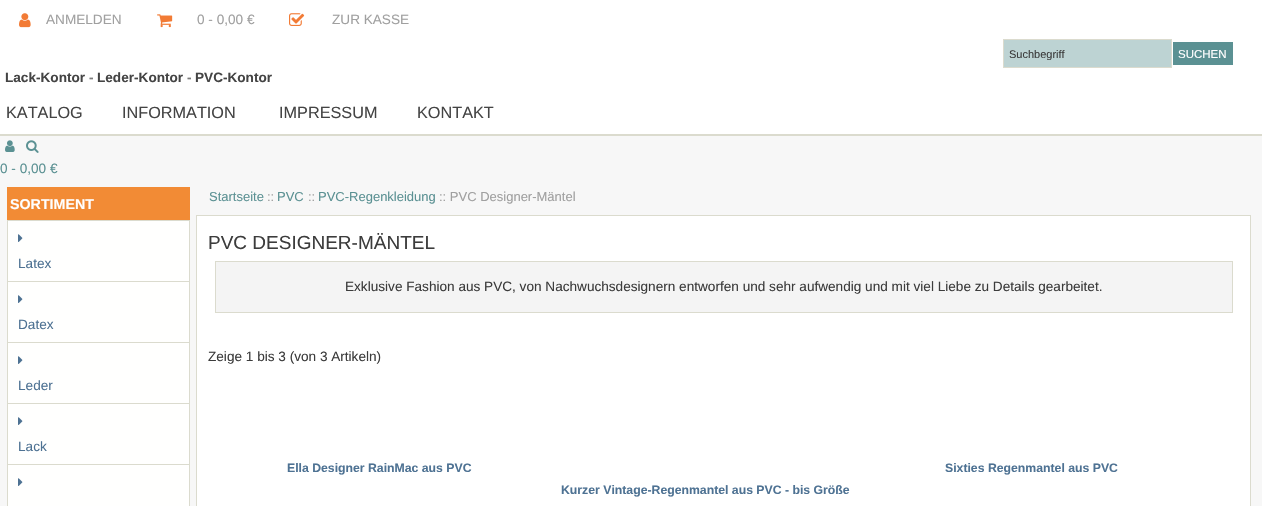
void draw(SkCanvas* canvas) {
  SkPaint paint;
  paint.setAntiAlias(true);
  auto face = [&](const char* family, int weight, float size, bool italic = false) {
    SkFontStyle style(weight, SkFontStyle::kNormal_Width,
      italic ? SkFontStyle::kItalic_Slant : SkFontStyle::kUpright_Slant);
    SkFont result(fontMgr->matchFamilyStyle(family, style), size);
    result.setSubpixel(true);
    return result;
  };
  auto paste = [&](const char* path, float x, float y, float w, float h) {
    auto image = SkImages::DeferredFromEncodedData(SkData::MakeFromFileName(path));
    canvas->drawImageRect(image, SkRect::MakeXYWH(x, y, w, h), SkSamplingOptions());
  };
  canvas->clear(0xfff7f7f7);
  paint.setColor(0xffffffff);
  canvas->drawRect(SkRect::MakeXYWH(0, 0, 1262, 134), paint);
  paste("img/1.png", 19, 13, 12, 15);
  paste("img/2.png", 157, 14, 16, 14);
  paste("img/3.png", 289, 13, 16, 13);
  paint.setColor(0xffdbdbce);
  canvas->drawRect(SkRect::MakeXYWH(0, 134, 1262, 2), paint);
  paint.setColor(0xffbdd3d3);
  canvas->drawRect(SkRect::MakeXYWH(1003.5f, 39.5f, 168, 28), paint);
  paint.setStroke(true);
  paint.setStrokeWidth(1);
  paint.setColor(0xffdbdbce);
  canvas->drawRect(SkRect::MakeXYWH(1003.5f, 39.5f, 168, 28), paint);
  paint.setStroke(false);
  paint.setColor(0xff5b9193);
  canvas->drawRect(SkRect::MakeXYWH(1173, 42, 60, 23), paint);
  paste("img/4.png", 5, 140, 10, 12);
  paste("img/5.png", 26, 140, 13, 13);
  {
    const struct { float x, y, w, h; SkColor color; } items[] = {
      {7, 187, 183, 33, 0xfff28b35},
      {7, 220, 183, 1, 0xffdbdbce},
      {189, 221, 1, 285, 0xffdbdbce},
      {7, 221, 1, 285, 0xffdbdbce},
      {8, 221, 181, 60, 0xfffffffe},
      {8, 281, 181, 1, 0xffdbdbce},
    };
    for (auto [x, y, w, h, color] : items) {
      paint.setColor(color);
      canvas->drawRect(SkRect::MakeXYWH(x, y, w, h), paint);
    }
  }
  paste("img/6.png", 18, 234, 5, 8);
  paint.setColor(0xfffffffe);
  canvas->drawRect(SkRect::MakeXYWH(8, 282, 181, 60), paint);
  paint.setColor(0xffdbdbce);
  canvas->drawRect(SkRect::MakeXYWH(8, 342, 181, 1), paint);
  paste("img/6.png", 18, 295, 5, 8);
  paint.setColor(0xfffffffe);
  canvas->drawRect(SkRect::MakeXYWH(8, 343, 181, 60), paint);
  paint.setColor(0xffdbdbce);
  canvas->drawRect(SkRect::MakeXYWH(8, 403, 181, 1), paint);
  paste("img/6.png", 18, 356, 5, 8);
  paint.setColor(0xfffffffe);
  canvas->drawRect(SkRect::MakeXYWH(8, 404, 181, 60), paint);
  paint.setColor(0xffdbdbce);
  canvas->drawRect(SkRect::MakeXYWH(8, 464, 181, 1), paint);
  paste("img/6.png", 18, 417, 5, 8);
  paint.setColor(0xfffffffe);
  canvas->drawRect(SkRect::MakeXYWH(8, 465, 181, 41), paint);
  paste("img/6.png", 18, 478, 5, 8);
  paint.setColor(0xffffffff);
  canvas->drawRect(SkRect::MakeXYWH(196.5f, 215.5f, 1054, 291), paint);
  paint.setStroke(true);
  paint.setColor(0xffdbdbce);
  canvas->drawRect(SkRect::MakeXYWH(196.5f, 215.5f, 1054, 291), paint);
  paint.setStroke(false);
  paint.setColor(0xfff4f4f4);
  canvas->drawRect(SkRect::MakeXYWH(215.5f, 261.5f, 1017, 51), paint);
  paint.setStroke(true);
  paint.setColor(0xffdbdbce);
  canvas->drawRect(SkRect::MakeXYWH(215.5f, 261.5f, 1017, 51), paint);
  auto f0 = face("Liberation Sans", 400, 13.6f);
  paint.setStroke(false);
  paint.setColor(0xffa0a0a0);
  {
    const struct { const char* s; float x, y; } items[] = {
      {"ANMELDEN", 46, 24},
      {"0 - 0,00 €", 197, 24},
      {"ZUR KASSE", 332, 24},
    };
    for (auto [s, x, y] : items) {
      canvas->drawString(s, x, y, f0, paint);
    }
  }
  canvas->save();
  canvas->clipRect(SkRect::MakeXYWH(1009, 48, 160, 12));
  auto f1 = face("Liberation Sans", 400, 11);
  paint.setColor(0xff3c3c3c);
  canvas->drawString("Suchbegriff", 1009, 58, f1, paint);
  canvas->restore();
  auto f2 = face("Liberation Sans", 400, 11.5f);
  paint.setColor(0xffffffff);
  canvas->drawString("SUCHEN", 1178, 58, f2, paint);
  auto f3 = face("Liberation Sans", 700, 13.6f);
  paint.setColor(0xff444444);
  canvas->drawString("Lack-Kontor", 5, 82, f3, paint);
  paint.setColor(0xff7c7c7c);
  canvas->drawString("-", 89, 82, f3, paint);
  paint.setColor(0xff444444);
  canvas->drawString("Leder-Kontor", 97, 82, f3, paint);
  paint.setColor(0xff7c7c7c);
  canvas->drawString("-", 187, 82, f3, paint);
  paint.setColor(0xff444444);
  canvas->drawString("PVC-Kontor", 195, 82, f3, paint);
  auto f4 = face("Liberation Sans", 400, 16.25f);
  {
    const struct { const char* s; float x, y; } items[] = {
      {"KATALOG", 6, 118},
      {"INFORMATION", 122, 118},
      {"IMPRESSUM", 279, 118},
      {"KONTAKT", 417, 118},
    };
    for (auto [s, x, y] : items) {
      canvas->drawString(s, x, y, f4, paint);
    }
  }
  paint.setColor(0xff5b9193);
  canvas->drawString("0 - 0,00 €", 0, 173, f0, paint);
  auto f5 = face("Liberation Sans", 700, 14.25f);
  paint.setColor(0xffffffff);
  canvas->drawString("SORTIMENT", 10, 209, f5, paint);
  paint.setColor(0xff4e7293);
  {
    const struct { const char* s; float x, y; } items[] = {
      {"Latex", 18, 268},
      {"Datex", 18, 329},
      {"Leder", 18, 390},
      {"Lack", 18, 451},
    };
    for (auto [s, x, y] : items) {
      canvas->drawString(s, x, y, f0, paint);
    }
  }
  auto f6 = face("Liberation Sans", 400, 13);
  paint.setColor(0xff5b9193);
  canvas->drawString("Startseite", 209, 201, f6, paint);
  paint.setColor(0xffa0a0a0);
  canvas->drawString("::", 267, 201, f6, paint);
  paint.setColor(0xff5b9193);
  canvas->drawString("PVC", 277, 201, f6, paint);
  paint.setColor(0xffa0a0a0);
  canvas->drawString("::", 308, 201, f6, paint);
  paint.setColor(0xff5b9193);
  canvas->drawString("PVC-Regenkleidung", 318, 201, f6, paint);
  paint.setColor(0xffa0a0a0);
  canvas->drawString(":: PVC Designer-Mäntel", 439, 201, f6, paint);
  auto f7 = face("Liberation Sans", 400, 19);
  paint.setColor(0xff3c3c3c);
  canvas->drawString("PVC DESIGNER-MÄNTEL", 208, 249, f7, paint);
  canvas->drawString("Exklusive Fashion aus PVC, von Nachwuchsdesignern entworfen und sehr aufwendig und mit viel Liebe zu Details gearbeitet.", 345, 291, f0, paint);
  canvas->drawString("Zeige 1 bis 3 (von 3 Artikeln)", 208, 361, f0, paint);
  auto f8 = face("Liberation Sans", 700, 12.25f);
  paint.setColor(0xff4e7293);
  {
    const struct { const char* s; float x, y; } items[] = {
      {"Ella Designer RainMac aus PVC", 287, 472},
      {"Sixties Regenmantel aus PVC", 945, 472},
      {"Kurzer Vintage-Regenmantel aus PVC - bis Größe", 561, 494},
    };
    for (auto [s, x, y] : items) {
      canvas->drawString(s, x, y, f8, paint);
    }
  }
}
